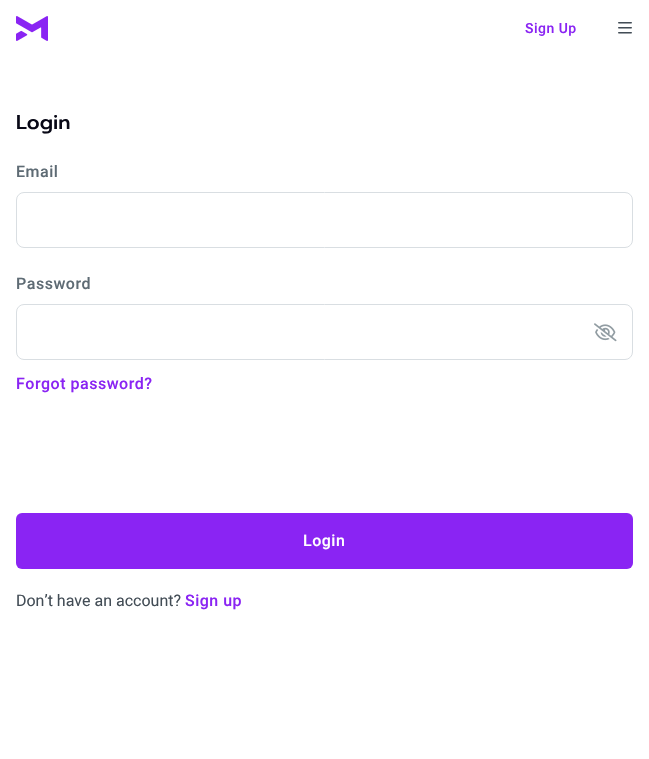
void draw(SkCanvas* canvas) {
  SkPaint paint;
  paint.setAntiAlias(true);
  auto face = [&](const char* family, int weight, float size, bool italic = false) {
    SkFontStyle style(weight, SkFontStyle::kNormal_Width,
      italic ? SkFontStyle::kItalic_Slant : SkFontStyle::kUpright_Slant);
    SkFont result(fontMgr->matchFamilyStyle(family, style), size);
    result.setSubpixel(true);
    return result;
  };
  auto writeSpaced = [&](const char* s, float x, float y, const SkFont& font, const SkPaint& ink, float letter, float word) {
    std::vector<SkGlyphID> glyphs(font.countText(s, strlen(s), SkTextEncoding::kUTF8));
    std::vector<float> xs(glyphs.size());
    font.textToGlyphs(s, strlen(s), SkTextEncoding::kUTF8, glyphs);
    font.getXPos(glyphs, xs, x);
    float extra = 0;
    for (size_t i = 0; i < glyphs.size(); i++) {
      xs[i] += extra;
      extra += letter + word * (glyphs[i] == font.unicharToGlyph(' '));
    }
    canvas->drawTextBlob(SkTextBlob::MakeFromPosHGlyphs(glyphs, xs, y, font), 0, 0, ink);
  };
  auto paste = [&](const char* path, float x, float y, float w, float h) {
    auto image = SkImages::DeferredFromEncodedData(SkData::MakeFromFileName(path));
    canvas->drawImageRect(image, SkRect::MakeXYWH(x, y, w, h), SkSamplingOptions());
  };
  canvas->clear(0xffffffff);
  paste("img/1.png", 16, 16, 32, 25);
  paste("img/2.png", 618, 22, 14, 12);
  paint.setStroke(true);
  paint.setStrokeWidth(1);
  paint.setColor(0xffd9dee2);
  canvas->drawRoundRect(SkRect::MakeXYWH(16.5f, 192.5f, 616, 55), 7.5f, 7.5f, paint);
  canvas->drawRoundRect(SkRect::MakeXYWH(16.5f, 304.5f, 616, 55), 7.5f, 7.5f, paint);
  paste("img/3.png", 594, 323, 23, 19);
  paint.setStroke(false);
  paint.setColor(0xff8a24f3);
  canvas->drawRoundRect(SkRect::MakeXYWH(16, 513, 617, 56), 6, 6, paint);
  auto f0 = face("Roboto", 500, 14);
  writeSpaced("Sign Up", 525, 33, f0, paint, 0.5f, 0);
  auto f1 = face("Prompt", 500, 20);
  paint.setColor(0xff080816);
  canvas->drawString("Login", 16, 129, f1, paint);
  auto f2 = face("Roboto", 500, 16);
  paint.setColor(0xff5e6b74);
  writeSpaced("Email", 16, 177, f2, paint, 0.5f, 0);
  writeSpaced("Password", 16, 289, f2, paint, 0.5f, 0);
  paint.setColor(0xff8a24f3);
  writeSpaced("Forgot password?", 16, 389, f2, paint, 0.5f, 0);
  paint.setColor(0xffffffff);
  writeSpaced("Login", 303, 546, f2, paint, 0.5f, 0);
  auto f3 = face("Roboto", 400, 16);
  paint.setColor(0xff434d56);
  canvas->drawString("Don’t have an account?", 16, 606, f3, paint);
  paint.setColor(0xff8a24f3);
  writeSpaced("Sign up", 185, 606, f2, paint, 0.5f, 0);
}
